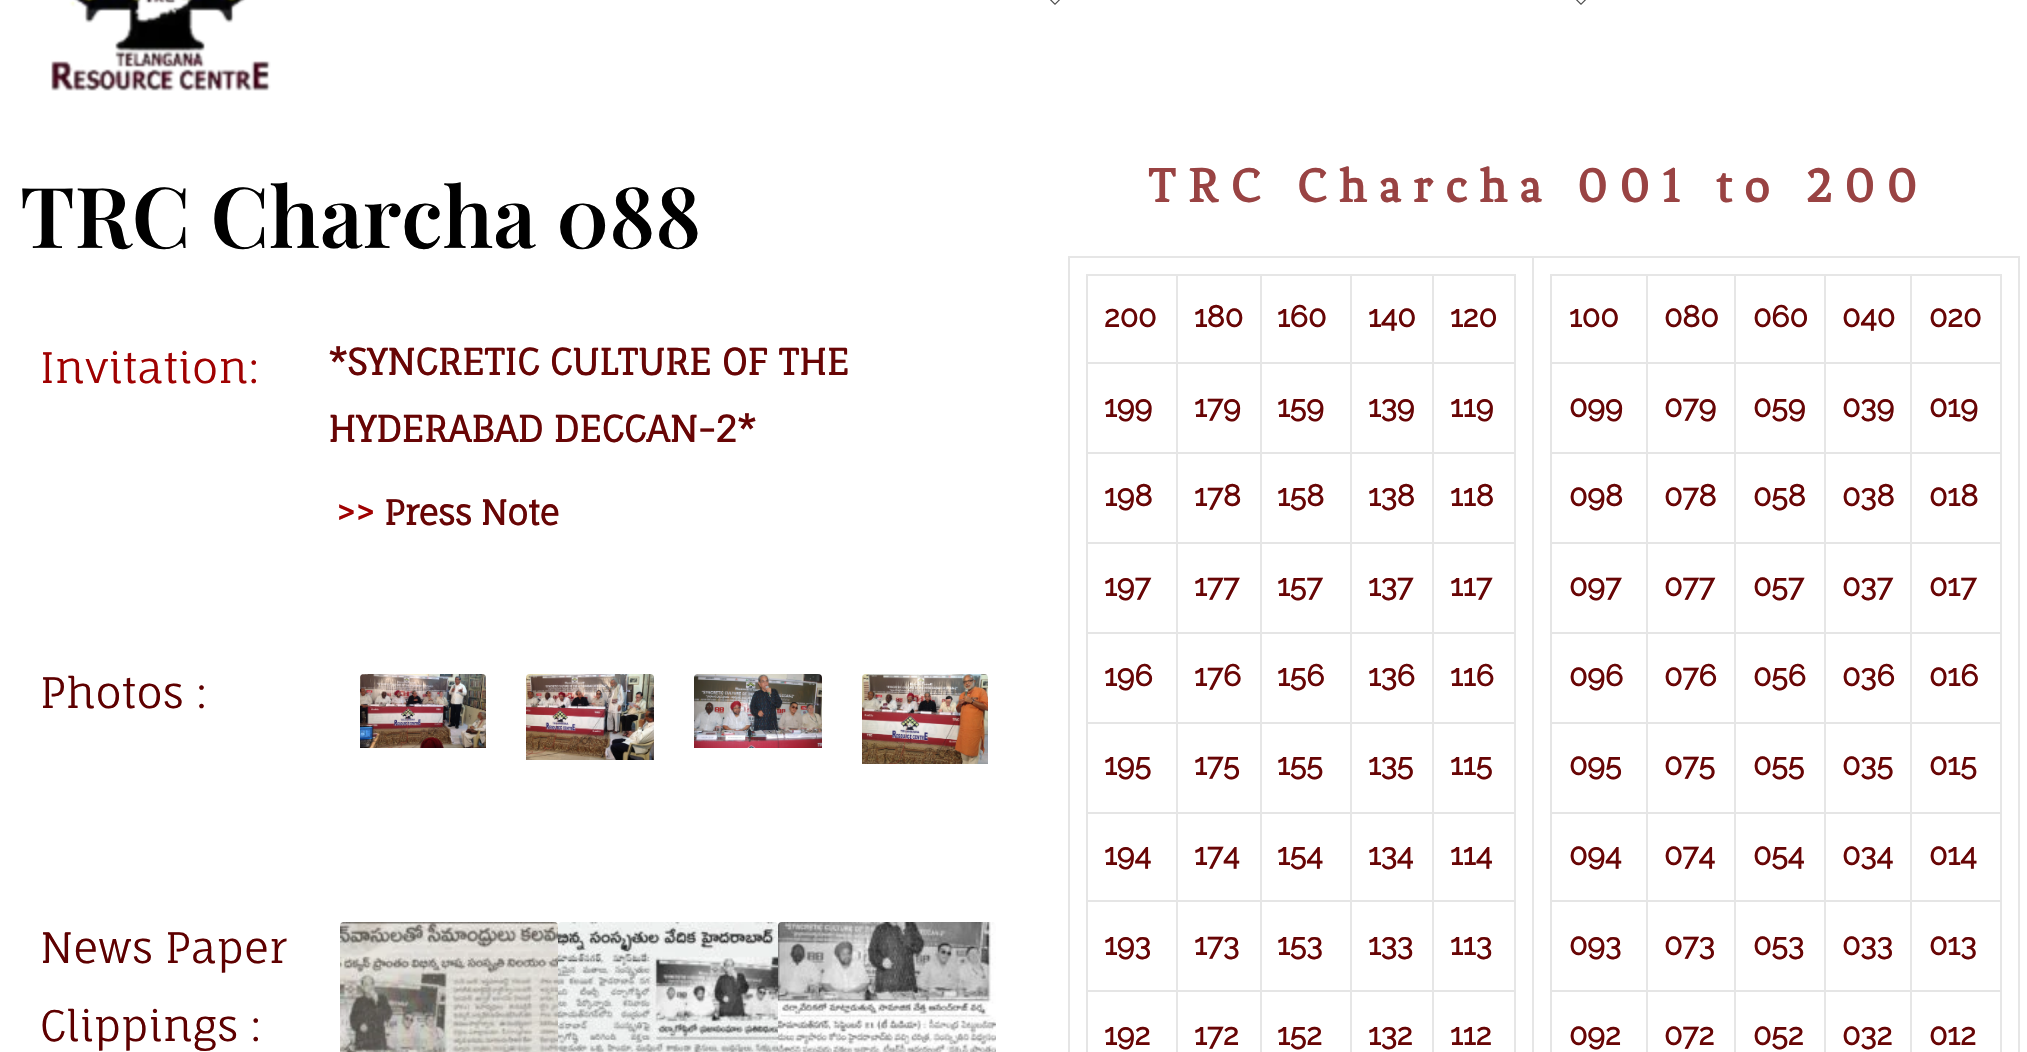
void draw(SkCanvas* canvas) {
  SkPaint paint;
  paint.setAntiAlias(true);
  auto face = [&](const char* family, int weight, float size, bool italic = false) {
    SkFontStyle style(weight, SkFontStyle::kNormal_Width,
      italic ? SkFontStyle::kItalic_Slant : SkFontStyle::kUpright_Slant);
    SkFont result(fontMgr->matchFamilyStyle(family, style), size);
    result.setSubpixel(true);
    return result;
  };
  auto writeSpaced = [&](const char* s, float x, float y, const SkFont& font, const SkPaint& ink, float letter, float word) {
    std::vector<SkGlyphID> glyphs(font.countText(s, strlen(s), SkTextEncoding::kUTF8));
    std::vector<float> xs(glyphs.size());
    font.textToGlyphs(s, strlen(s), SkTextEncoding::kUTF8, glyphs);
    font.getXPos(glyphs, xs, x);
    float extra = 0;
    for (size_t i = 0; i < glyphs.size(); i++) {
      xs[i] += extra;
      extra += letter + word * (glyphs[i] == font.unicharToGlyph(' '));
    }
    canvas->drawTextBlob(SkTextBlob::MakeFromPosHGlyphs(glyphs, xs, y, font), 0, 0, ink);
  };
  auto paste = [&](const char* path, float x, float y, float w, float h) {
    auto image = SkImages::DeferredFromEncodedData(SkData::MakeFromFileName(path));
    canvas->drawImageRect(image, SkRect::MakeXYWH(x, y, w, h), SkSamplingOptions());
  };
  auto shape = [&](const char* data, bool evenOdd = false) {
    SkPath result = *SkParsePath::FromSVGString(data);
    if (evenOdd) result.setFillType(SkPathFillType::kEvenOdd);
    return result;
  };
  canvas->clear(0xffffffff);
  paste("img/1.png", 51, 0, 220, 91);
  paste("img/2.png", 1050, 0, 10, 5);
  paste("img/2.png", 1576, 0, 10, 5);
  paste("img/3.png", 360, 674, 126, 74);
  paste("img/4.png", 526, 674, 128, 86);
  paste("img/5.png", 694, 674, 128, 74);
  paste("img/6.png", 862, 674, 126, 90);
  paste("img/7.png", 340, 922, 218, 130);
  paste("img/8.png", 558, 922, 220, 130);
  paste("img/9.png", 778, 922, 218, 130);
  paint.setColor(0xffe6e6e6);
  canvas->drawPath(shape("M1068 256H2020V258H1070Z"), paint);
  paint.setColor(0x1a000000);
  canvas->drawPath(shape("M1068 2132V256L1070 258V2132Z"), paint);
  paint.setColor(0xffe6e6e6);
  canvas->drawPath(shape("M1534 258V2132L1532 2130V258Z"), paint);
  canvas->drawPath(shape("M1086 274H1516V276H1088Z"), paint);
  paint.setColor(0x1a000000);
  canvas->drawPath(shape("M1086 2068V274L1088 276V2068Z"), paint);
  paint.setColor(0xffe6e6e6);
  canvas->drawPath(shape("M1178 276V364L1176 362V276Z"), paint);
  paint.setColor(0x1a000000);
  canvas->drawPath(shape("M1178 364H1088V362H1176Z"), paint);
  paint.setColor(0xffe6e6e6);
  canvas->drawPath(shape("M1262 276V364L1260 362V276Z"), paint);
  paint.setColor(0x1a000000);
  canvas->drawPath(shape("M1262 364H1178V362H1260Z"), paint);
  paint.setColor(0xffe6e6e6);
  canvas->drawPath(shape("M1352 276V364L1350 362V276Z"), paint);
  paint.setColor(0x1a000000);
  canvas->drawPath(shape("M1352 364H1262V362H1350Z"), paint);
  paint.setColor(0xffe6e6e6);
  canvas->drawPath(shape("M1434 276V364L1432 362V276Z"), paint);
  paint.setColor(0x1a000000);
  canvas->drawPath(shape("M1434 364H1352V362H1432Z"), paint);
  paint.setColor(0xffe6e6e6);
  canvas->drawPath(shape("M1516 276V364L1514 362V276Z"), paint);
  paint.setColor(0x1a000000);
  canvas->drawPath(shape("M1516 364H1434V362H1514Z"), paint);
  paint.setColor(0xffe6e6e6);
  canvas->drawPath(shape("M1178 364V454L1176 452V364Z"), paint);
  paint.setColor(0x1a000000);
  canvas->drawPath(shape("M1178 454H1088V452H1176Z"), paint);
  paint.setColor(0xffe6e6e6);
  canvas->drawPath(shape("M1262 364V454L1260 452V364Z"), paint);
  paint.setColor(0x1a000000);
  canvas->drawPath(shape("M1262 454H1178V452H1260Z"), paint);
  paint.setColor(0xffe6e6e6);
  canvas->drawPath(shape("M1352 364V454L1350 452V364Z"), paint);
  paint.setColor(0x1a000000);
  canvas->drawPath(shape("M1352 454H1262V452H1350Z"), paint);
  paint.setColor(0xffe6e6e6);
  canvas->drawPath(shape("M1434 364V454L1432 452V364Z"), paint);
  paint.setColor(0x1a000000);
  canvas->drawPath(shape("M1434 454H1352V452H1432Z"), paint);
  paint.setColor(0xffe6e6e6);
  canvas->drawPath(shape("M1516 364V454L1514 452V364Z"), paint);
  paint.setColor(0x1a000000);
  canvas->drawPath(shape("M1516 454H1434V452H1514Z"), paint);
  paint.setColor(0xffe6e6e6);
  canvas->drawPath(shape("M1178 454V544L1176 542V454Z"), paint);
  paint.setColor(0x1a000000);
  canvas->drawPath(shape("M1178 544H1088V542H1176Z"), paint);
  paint.setColor(0xffe6e6e6);
  canvas->drawPath(shape("M1262 454V544L1260 542V454Z"), paint);
  paint.setColor(0x1a000000);
  canvas->drawPath(shape("M1262 544H1178V542H1260Z"), paint);
  paint.setColor(0xffe6e6e6);
  canvas->drawPath(shape("M1352 454V544L1350 542V454Z"), paint);
  paint.setColor(0x1a000000);
  canvas->drawPath(shape("M1352 544H1262V542H1350Z"), paint);
  paint.setColor(0xffe6e6e6);
  canvas->drawPath(shape("M1434 454V544L1432 542V454Z"), paint);
  paint.setColor(0x1a000000);
  canvas->drawPath(shape("M1434 544H1352V542H1432Z"), paint);
  paint.setColor(0xffe6e6e6);
  canvas->drawPath(shape("M1516 454V544L1514 542V454Z"), paint);
  paint.setColor(0x1a000000);
  canvas->drawPath(shape("M1516 544H1434V542H1514Z"), paint);
  paint.setColor(0xffe6e6e6);
  canvas->drawPath(shape("M1178 544V634L1176 632V544Z"), paint);
  paint.setColor(0x1a000000);
  canvas->drawPath(shape("M1178 634H1088V632H1176Z"), paint);
  paint.setColor(0xffe6e6e6);
  canvas->drawPath(shape("M1262 544V634L1260 632V544Z"), paint);
  paint.setColor(0x1a000000);
  canvas->drawPath(shape("M1262 634H1178V632H1260Z"), paint);
  paint.setColor(0xffe6e6e6);
  canvas->drawPath(shape("M1352 544V634L1350 632V544Z"), paint);
  paint.setColor(0x1a000000);
  canvas->drawPath(shape("M1352 634H1262V632H1350Z"), paint);
  paint.setColor(0xffe6e6e6);
  canvas->drawPath(shape("M1434 544V634L1432 632V544Z"), paint);
  paint.setColor(0x1a000000);
  canvas->drawPath(shape("M1434 634H1352V632H1432Z"), paint);
  paint.setColor(0xffe6e6e6);
  canvas->drawPath(shape("M1516 544V634L1514 632V544Z"), paint);
  paint.setColor(0x1a000000);
  canvas->drawPath(shape("M1516 634H1434V632H1514Z"), paint);
  paint.setColor(0xffe6e6e6);
  canvas->drawPath(shape("M1178 634V724L1176 722V634Z"), paint);
  paint.setColor(0x1a000000);
  canvas->drawPath(shape("M1178 724H1088V722H1176Z"), paint);
  paint.setColor(0xffe6e6e6);
  canvas->drawPath(shape("M1262 634V724L1260 722V634Z"), paint);
  paint.setColor(0x1a000000);
  canvas->drawPath(shape("M1262 724H1178V722H1260Z"), paint);
  paint.setColor(0xffe6e6e6);
  canvas->drawPath(shape("M1352 634V724L1350 722V634Z"), paint);
  paint.setColor(0x1a000000);
  canvas->drawPath(shape("M1352 724H1262V722H1350Z"), paint);
  paint.setColor(0xffe6e6e6);
  canvas->drawPath(shape("M1434 634V724L1432 722V634Z"), paint);
  paint.setColor(0x1a000000);
  canvas->drawPath(shape("M1434 724H1352V722H1432Z"), paint);
  paint.setColor(0xffe6e6e6);
  canvas->drawPath(shape("M1516 634V724L1514 722V634Z"), paint);
  paint.setColor(0x1a000000);
  canvas->drawPath(shape("M1516 724H1434V722H1514Z"), paint);
  paint.setColor(0xffe6e6e6);
  canvas->drawPath(shape("M1178 724V814L1176 812V724Z"), paint);
  paint.setColor(0x1a000000);
  canvas->drawPath(shape("M1178 814H1088V812H1176Z"), paint);
  paint.setColor(0xffe6e6e6);
  canvas->drawPath(shape("M1262 724V814L1260 812V724Z"), paint);
  paint.setColor(0x1a000000);
  canvas->drawPath(shape("M1262 814H1178V812H1260Z"), paint);
  paint.setColor(0xffe6e6e6);
  canvas->drawPath(shape("M1352 724V814L1350 812V724Z"), paint);
  paint.setColor(0x1a000000);
  canvas->drawPath(shape("M1352 814H1262V812H1350Z"), paint);
  paint.setColor(0xffe6e6e6);
  canvas->drawPath(shape("M1434 724V814L1432 812V724Z"), paint);
  paint.setColor(0x1a000000);
  canvas->drawPath(shape("M1434 814H1352V812H1432Z"), paint);
  paint.setColor(0xffe6e6e6);
  canvas->drawPath(shape("M1516 724V814L1514 812V724Z"), paint);
  paint.setColor(0x1a000000);
  canvas->drawPath(shape("M1516 814H1434V812H1514Z"), paint);
  paint.setColor(0xffe6e6e6);
  canvas->drawPath(shape("M1178 814V902L1176 900V814Z"), paint);
  paint.setColor(0x1a000000);
  canvas->drawPath(shape("M1178 902H1088V900H1176Z"), paint);
  paint.setColor(0xffe6e6e6);
  canvas->drawPath(shape("M1262 814V902L1260 900V814Z"), paint);
  paint.setColor(0x1a000000);
  canvas->drawPath(shape("M1262 902H1178V900H1260Z"), paint);
  paint.setColor(0xffe6e6e6);
  canvas->drawPath(shape("M1352 814V902L1350 900V814Z"), paint);
  paint.setColor(0x1a000000);
  canvas->drawPath(shape("M1352 902H1262V900H1350Z"), paint);
  paint.setColor(0xffe6e6e6);
  canvas->drawPath(shape("M1434 814V902L1432 900V814Z"), paint);
  paint.setColor(0x1a000000);
  canvas->drawPath(shape("M1434 902H1352V900H1432Z"), paint);
  paint.setColor(0xffe6e6e6);
  canvas->drawPath(shape("M1516 814V902L1514 900V814Z"), paint);
  paint.setColor(0x1a000000);
  canvas->drawPath(shape("M1516 902H1434V900H1514Z"), paint);
  paint.setColor(0xffe6e6e6);
  canvas->drawPath(shape("M1178 902V992L1176 990V902Z"), paint);
  paint.setColor(0x1a000000);
  canvas->drawPath(shape("M1178 992H1088V990H1176Z"), paint);
  paint.setColor(0xffe6e6e6);
  canvas->drawPath(shape("M1262 902V992L1260 990V902Z"), paint);
  paint.setColor(0x1a000000);
  canvas->drawPath(shape("M1262 992H1178V990H1260Z"), paint);
  paint.setColor(0xffe6e6e6);
  canvas->drawPath(shape("M1352 902V992L1350 990V902Z"), paint);
  paint.setColor(0x1a000000);
  canvas->drawPath(shape("M1352 992H1262V990H1350Z"), paint);
  paint.setColor(0xffe6e6e6);
  canvas->drawPath(shape("M1434 902V992L1432 990V902Z"), paint);
  paint.setColor(0x1a000000);
  canvas->drawPath(shape("M1434 992H1352V990H1432Z"), paint);
  paint.setColor(0xffe6e6e6);
  canvas->drawPath(shape("M1516 902V992L1514 990V902Z"), paint);
  paint.setColor(0x1a000000);
  canvas->drawPath(shape("M1516 992H1434V990H1514Z"), paint);
  paint.setColor(0xffe6e6e6);
  canvas->drawPath(shape("M1178 992V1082L1176 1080V992Z"), paint);
  canvas->drawPath(shape("M1262 992V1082L1260 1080V992Z"), paint);
  canvas->drawPath(shape("M1352 992V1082L1350 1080V992Z"), paint);
  canvas->drawPath(shape("M1434 992V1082L1432 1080V992Z"), paint);
  canvas->drawPath(shape("M1516 992V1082L1514 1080V992Z"), paint);
  canvas->drawPath(shape("M2020 258V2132L2018 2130V258Z"), paint);
  canvas->drawPath(shape("M1550 274H2002V276H1552Z"), paint);
  paint.setColor(0x1a000000);
  canvas->drawPath(shape("M1550 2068V274L1552 276V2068Z"), paint);
  paint.setColor(0xffe6e6e6);
  canvas->drawPath(shape("M1648 276V364L1646 362V276Z"), paint);
  paint.setColor(0x1a000000);
  canvas->drawPath(shape("M1648 364H1552V362H1646Z"), paint);
  paint.setColor(0xffe6e6e6);
  canvas->drawPath(shape("M1736 276V364L1734 362V276Z"), paint);
  paint.setColor(0x1a000000);
  canvas->drawPath(shape("M1736 364H1648V362H1734Z"), paint);
  paint.setColor(0xffe6e6e6);
  canvas->drawPath(shape("M1826 276V364L1824 362V276Z"), paint);
  paint.setColor(0x1a000000);
  canvas->drawPath(shape("M1826 364H1736V362H1824Z"), paint);
  paint.setColor(0xffe6e6e6);
  canvas->drawPath(shape("M1912 276V364L1910 362V276Z"), paint);
  paint.setColor(0x1a000000);
  canvas->drawPath(shape("M1912 364H1826V362H1910Z"), paint);
  paint.setColor(0xffe6e6e6);
  canvas->drawPath(shape("M2002 276V364L2000 362V276Z"), paint);
  paint.setColor(0x1a000000);
  canvas->drawPath(shape("M2002 364H1912V362H2000Z"), paint);
  paint.setColor(0xffe6e6e6);
  canvas->drawPath(shape("M1648 364V454L1646 452V364Z"), paint);
  paint.setColor(0x1a000000);
  canvas->drawPath(shape("M1648 454H1552V452H1646Z"), paint);
  paint.setColor(0xffe6e6e6);
  canvas->drawPath(shape("M1736 364V454L1734 452V364Z"), paint);
  paint.setColor(0x1a000000);
  canvas->drawPath(shape("M1736 454H1648V452H1734Z"), paint);
  paint.setColor(0xffe6e6e6);
  canvas->drawPath(shape("M1826 364V454L1824 452V364Z"), paint);
  paint.setColor(0x1a000000);
  canvas->drawPath(shape("M1826 454H1736V452H1824Z"), paint);
  paint.setColor(0xffe6e6e6);
  canvas->drawPath(shape("M1912 364V454L1910 452V364Z"), paint);
  paint.setColor(0x1a000000);
  canvas->drawPath(shape("M1912 454H1826V452H1910Z"), paint);
  paint.setColor(0xffe6e6e6);
  canvas->drawPath(shape("M2002 364V454L2000 452V364Z"), paint);
  paint.setColor(0x1a000000);
  canvas->drawPath(shape("M2002 454H1912V452H2000Z"), paint);
  paint.setColor(0xffe6e6e6);
  canvas->drawPath(shape("M1648 454V544L1646 542V454Z"), paint);
  paint.setColor(0x1a000000);
  canvas->drawPath(shape("M1648 544H1552V542H1646Z"), paint);
  paint.setColor(0xffe6e6e6);
  canvas->drawPath(shape("M1736 454V544L1734 542V454Z"), paint);
  paint.setColor(0x1a000000);
  canvas->drawPath(shape("M1736 544H1648V542H1734Z"), paint);
  paint.setColor(0xffe6e6e6);
  canvas->drawPath(shape("M1826 454V544L1824 542V454Z"), paint);
  paint.setColor(0x1a000000);
  canvas->drawPath(shape("M1826 544H1736V542H1824Z"), paint);
  paint.setColor(0xffe6e6e6);
  canvas->drawPath(shape("M1912 454V544L1910 542V454Z"), paint);
  paint.setColor(0x1a000000);
  canvas->drawPath(shape("M1912 544H1826V542H1910Z"), paint);
  paint.setColor(0xffe6e6e6);
  canvas->drawPath(shape("M2002 454V544L2000 542V454Z"), paint);
  paint.setColor(0x1a000000);
  canvas->drawPath(shape("M2002 544H1912V542H2000Z"), paint);
  paint.setColor(0xffe6e6e6);
  canvas->drawPath(shape("M1648 544V634L1646 632V544Z"), paint);
  paint.setColor(0x1a000000);
  canvas->drawPath(shape("M1648 634H1552V632H1646Z"), paint);
  paint.setColor(0xffe6e6e6);
  canvas->drawPath(shape("M1736 544V634L1734 632V544Z"), paint);
  paint.setColor(0x1a000000);
  canvas->drawPath(shape("M1736 634H1648V632H1734Z"), paint);
  paint.setColor(0xffe6e6e6);
  canvas->drawPath(shape("M1826 544V634L1824 632V544Z"), paint);
  paint.setColor(0x1a000000);
  canvas->drawPath(shape("M1826 634H1736V632H1824Z"), paint);
  paint.setColor(0xffe6e6e6);
  canvas->drawPath(shape("M1912 544V634L1910 632V544Z"), paint);
  paint.setColor(0x1a000000);
  canvas->drawPath(shape("M1912 634H1826V632H1910Z"), paint);
  paint.setColor(0xffe6e6e6);
  canvas->drawPath(shape("M2002 544V634L2000 632V544Z"), paint);
  paint.setColor(0x1a000000);
  canvas->drawPath(shape("M2002 634H1912V632H2000Z"), paint);
  paint.setColor(0xffe6e6e6);
  canvas->drawPath(shape("M1648 634V724L1646 722V634Z"), paint);
  paint.setColor(0x1a000000);
  canvas->drawPath(shape("M1648 724H1552V722H1646Z"), paint);
  paint.setColor(0xffe6e6e6);
  canvas->drawPath(shape("M1736 634V724L1734 722V634Z"), paint);
  paint.setColor(0x1a000000);
  canvas->drawPath(shape("M1736 724H1648V722H1734Z"), paint);
  paint.setColor(0xffe6e6e6);
  canvas->drawPath(shape("M1826 634V724L1824 722V634Z"), paint);
  paint.setColor(0x1a000000);
  canvas->drawPath(shape("M1826 724H1736V722H1824Z"), paint);
  paint.setColor(0xffe6e6e6);
  canvas->drawPath(shape("M1912 634V724L1910 722V634Z"), paint);
  paint.setColor(0x1a000000);
  canvas->drawPath(shape("M1912 724H1826V722H1910Z"), paint);
  paint.setColor(0xffe6e6e6);
  canvas->drawPath(shape("M2002 634V724L2000 722V634Z"), paint);
  paint.setColor(0x1a000000);
  canvas->drawPath(shape("M2002 724H1912V722H2000Z"), paint);
  paint.setColor(0xffe6e6e6);
  canvas->drawPath(shape("M1648 724V814L1646 812V724Z"), paint);
  paint.setColor(0x1a000000);
  canvas->drawPath(shape("M1648 814H1552V812H1646Z"), paint);
  paint.setColor(0xffe6e6e6);
  canvas->drawPath(shape("M1736 724V814L1734 812V724Z"), paint);
  paint.setColor(0x1a000000);
  canvas->drawPath(shape("M1736 814H1648V812H1734Z"), paint);
  paint.setColor(0xffe6e6e6);
  canvas->drawPath(shape("M1826 724V814L1824 812V724Z"), paint);
  paint.setColor(0x1a000000);
  canvas->drawPath(shape("M1826 814H1736V812H1824Z"), paint);
  paint.setColor(0xffe6e6e6);
  canvas->drawPath(shape("M1912 724V814L1910 812V724Z"), paint);
  paint.setColor(0x1a000000);
  canvas->drawPath(shape("M1912 814H1826V812H1910Z"), paint);
  paint.setColor(0xffe6e6e6);
  canvas->drawPath(shape("M2002 724V814L2000 812V724Z"), paint);
  paint.setColor(0x1a000000);
  canvas->drawPath(shape("M2002 814H1912V812H2000Z"), paint);
  paint.setColor(0xffe6e6e6);
  canvas->drawPath(shape("M1648 814V902L1646 900V814Z"), paint);
  paint.setColor(0x1a000000);
  canvas->drawPath(shape("M1648 902H1552V900H1646Z"), paint);
  paint.setColor(0xffe6e6e6);
  canvas->drawPath(shape("M1736 814V902L1734 900V814Z"), paint);
  paint.setColor(0x1a000000);
  canvas->drawPath(shape("M1736 902H1648V900H1734Z"), paint);
  paint.setColor(0xffe6e6e6);
  canvas->drawPath(shape("M1826 814V902L1824 900V814Z"), paint);
  paint.setColor(0x1a000000);
  canvas->drawPath(shape("M1826 902H1736V900H1824Z"), paint);
  paint.setColor(0xffe6e6e6);
  canvas->drawPath(shape("M1912 814V902L1910 900V814Z"), paint);
  paint.setColor(0x1a000000);
  canvas->drawPath(shape("M1912 902H1826V900H1910Z"), paint);
  paint.setColor(0xffe6e6e6);
  canvas->drawPath(shape("M2002 814V902L2000 900V814Z"), paint);
  paint.setColor(0x1a000000);
  canvas->drawPath(shape("M2002 902H1912V900H2000Z"), paint);
  paint.setColor(0xffe6e6e6);
  canvas->drawPath(shape("M1648 902V992L1646 990V902Z"), paint);
  paint.setColor(0x1a000000);
  canvas->drawPath(shape("M1648 992H1552V990H1646Z"), paint);
  paint.setColor(0xffe6e6e6);
  canvas->drawPath(shape("M1736 902V992L1734 990V902Z"), paint);
  paint.setColor(0x1a000000);
  canvas->drawPath(shape("M1736 992H1648V990H1734Z"), paint);
  paint.setColor(0xffe6e6e6);
  canvas->drawPath(shape("M1826 902V992L1824 990V902Z"), paint);
  paint.setColor(0x1a000000);
  canvas->drawPath(shape("M1826 992H1736V990H1824Z"), paint);
  paint.setColor(0xffe6e6e6);
  canvas->drawPath(shape("M1912 902V992L1910 990V902Z"), paint);
  paint.setColor(0x1a000000);
  canvas->drawPath(shape("M1912 992H1826V990H1910Z"), paint);
  paint.setColor(0xffe6e6e6);
  canvas->drawPath(shape("M2002 902V992L2000 990V902Z"), paint);
  paint.setColor(0x1a000000);
  canvas->drawPath(shape("M2002 992H1912V990H2000Z"), paint);
  paint.setColor(0xffe6e6e6);
  canvas->drawPath(shape("M1648 992V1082L1646 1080V992Z"), paint);
  canvas->drawPath(shape("M1736 992V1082L1734 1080V992Z"), paint);
  canvas->drawPath(shape("M1826 992V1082L1824 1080V992Z"), paint);
  canvas->drawPath(shape("M1912 992V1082L1910 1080V992Z"), paint);
  canvas->drawPath(shape("M2002 992V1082L2000 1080V992Z"), paint);
  auto f0 = face("Playfair Display", 600, 84);
  paint.setColor(0xff000000);
  canvas->drawString("TRC Charcha 088", 20, 248, f0, paint);
  auto f1 = face("Fauna One", 400, 42);
  paint.setColor(0xffa00101);
  canvas->drawString("Invitation:", 40, 383, f1, paint);
  auto f2 = face("Fauna One", 700, 36);
  paint.setColor(0xff680505);
  canvas->drawString("*SYNCRETIC CULTURE OF THE", 328, 375, f2, paint);
  canvas->drawString("HYDERABAD DECCAN-2*", 328, 442, f2, paint);
  auto f3 = face("Fauna One", 700, 34);
  paint.setColor(0xffa00101);
  writeSpaced(">>", 336, 525, f3, paint, -0.5f, 0);
  paint.setColor(0xff680505);
  writeSpaced("Press Note", 384, 525, f3, paint, -0.5f, 0);
  paint.setColor(0xff5e0000);
  {
    const struct { const char* s; float x, y; } items[] = {
      {"Photos :", 40, 708},
      {"News Paper", 40, 963},
      {"Clippings :", 40, 1041},
    };
    for (auto [s, x, y] : items) {
      canvas->drawString(s, x, y, f1, paint);
    }
  }
  auto f4 = face("Fenix", 700, 50);
  paint.setColor(0xff994343);
  writeSpaced("TRC Charcha 001 to 200", 1148, 202, f4, paint, 12.8f, 0);
  auto f5 = face("Raleway", 700, 30);
  paint.setColor(0xff680505);
  {
    const struct { const char* s; float x, y; } items[] = {
      {"200", 1104, 327},
      {"180", 1194, 327},
      {"160", 1277, 327},
      {"140", 1368, 327},
      {"120", 1450, 327},
      {"199", 1104, 417},
      {"179", 1194, 417},
      {"159", 1277, 417},
      {"139", 1368, 417},
      {"119", 1450, 417},
      {"198", 1104, 506},
      {"178", 1194, 506},
      {"158", 1277, 506},
      {"138", 1368, 506},
      {"118", 1450, 506},
      {"197", 1104, 596},
      {"177", 1194, 596},
      {"157", 1277, 596},
      {"137", 1368, 596},
      {"117", 1450, 596},
      {"196", 1104, 686},
      {"176", 1194, 686},
      {"156", 1277, 686},
      {"136", 1368, 686},
      {"116", 1450, 686},
      {"195", 1104, 775},
      {"175", 1194, 775},
      {"155", 1277, 775},
      {"135", 1368, 775},
      {"115", 1450, 775},
      {"194", 1104, 865},
      {"174", 1194, 865},
      {"154", 1277, 865},
      {"134", 1368, 865},
      {"114", 1450, 865},
      {"193", 1104, 955},
      {"173", 1194, 955},
      {"153", 1277, 955},
      {"133", 1368, 955},
      {"113", 1450, 955},
      {"192", 1104, 1045},
      {"172", 1194, 1045},
      {"152", 1277, 1045},
      {"132", 1368, 1045},
      {"112", 1450, 1045},
      {"100", 1569, 327},
      {"080", 1664, 327},
      {"060", 1753, 327},
      {"040", 1842, 327},
      {"020", 1929, 327},
      {"099", 1569, 417},
      {"079", 1664, 417},
      {"059", 1753, 417},
      {"039", 1842, 417},
      {"019", 1929, 417},
      {"098", 1569, 506},
      {"078", 1664, 506},
      {"058", 1753, 506},
      {"038", 1842, 506},
      {"018", 1929, 506},
      {"097", 1569, 596},
      {"077", 1664, 596},
      {"057", 1753, 596},
      {"037", 1842, 596},
      {"017", 1929, 596},
      {"096", 1569, 686},
      {"076", 1664, 686},
      {"056", 1753, 686},
      {"036", 1842, 686},
      {"016", 1929, 686},
      {"095", 1569, 775},
      {"075", 1664, 775},
      {"055", 1753, 775},
      {"035", 1842, 775},
      {"015", 1929, 775},
      {"094", 1569, 865},
      {"074", 1664, 865},
      {"054", 1753, 865},
      {"034", 1842, 865},
      {"014", 1929, 865},
      {"093", 1569, 955},
      {"073", 1664, 955},
      {"053", 1753, 955},
      {"033", 1842, 955},
      {"013", 1929, 955},
      {"092", 1569, 1045},
      {"072", 1664, 1045},
      {"052", 1753, 1045},
      {"032", 1842, 1045},
      {"012", 1929, 1045},
    };
    for (auto [s, x, y] : items) {
      canvas->drawString(s, x, y, f5, paint);
    }
  }
}
